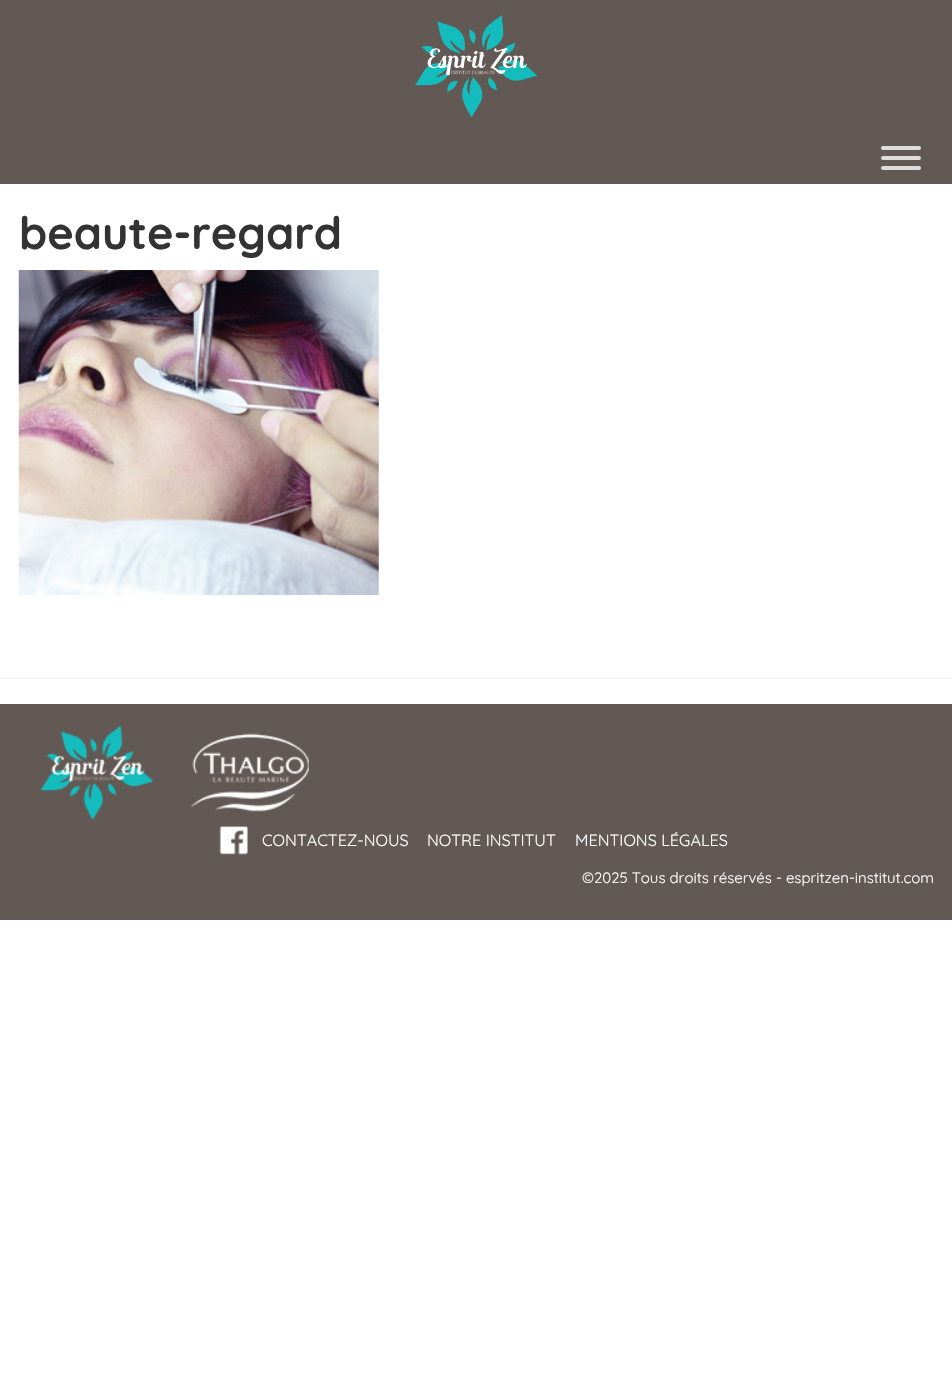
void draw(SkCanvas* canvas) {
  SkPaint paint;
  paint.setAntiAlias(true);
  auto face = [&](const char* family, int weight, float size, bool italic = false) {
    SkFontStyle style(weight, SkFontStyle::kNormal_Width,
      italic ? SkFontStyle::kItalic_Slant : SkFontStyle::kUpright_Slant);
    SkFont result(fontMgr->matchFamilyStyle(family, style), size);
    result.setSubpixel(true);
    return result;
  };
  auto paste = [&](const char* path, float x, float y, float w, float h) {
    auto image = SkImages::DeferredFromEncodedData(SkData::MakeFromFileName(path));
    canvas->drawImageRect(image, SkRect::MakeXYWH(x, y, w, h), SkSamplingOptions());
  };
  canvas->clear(0xffffffff);
  paint.setColor(0xff635954);
  canvas->drawRect(SkRect::MakeXYWH(0, 0, 952, 184), paint);
  paste("img/1.png", 415, 15, 122, 102);
  paint.setColor(0xffdddddd);
  canvas->drawRoundRect(SkRect::MakeXYWH(881, 146, 40, 4), 2, 2, paint);
  canvas->drawRoundRect(SkRect::MakeXYWH(881, 156, 40, 4), 2, 2, paint);
  canvas->drawRoundRect(SkRect::MakeXYWH(881, 166, 40, 4), 2, 2, paint);
  paste("img/2.png", 18, 270, 361, 325);
  paint.setColor(0xffeeeeee);
  canvas->drawRect(SkRect::MakeXYWH(0, 678, 952, 1), paint);
  paint.setColor(0xff635954);
  canvas->drawRect(SkRect::MakeXYWH(0, 704, 952, 216), paint);
  paste("img/3.png", 40, 725, 114, 95);
  paste("img/4.png", 191, 733, 118, 79);
  paste("img/5.png", 219, 826, 29, 29);
  auto f0 = face("Quicksand", 700, 45);
  paint.setColor(0xff333333);
  canvas->drawString("beaute-regard", 19, 249, f0, paint);
  auto f1 = face("Quicksand", 400, 16.25f);
  paint.setColor(0xffffffff);
  {
    const struct { const char* s; float x, y; } items[] = {
      {"CONTACTEZ-NOUS", 262, 846},
      {"NOTRE INSTITUT", 427, 846},
      {"MENTIONS LÉGALES", 575, 846},
    };
    for (auto [s, x, y] : items) {
      canvas->drawString(s, x, y, f1, paint);
    }
  }
  auto f2 = face("Quicksand", 400, 15);
  canvas->drawString("©2025 Tous droits réservés - espritzen-institut.com", 582, 883, f2, paint);
}
